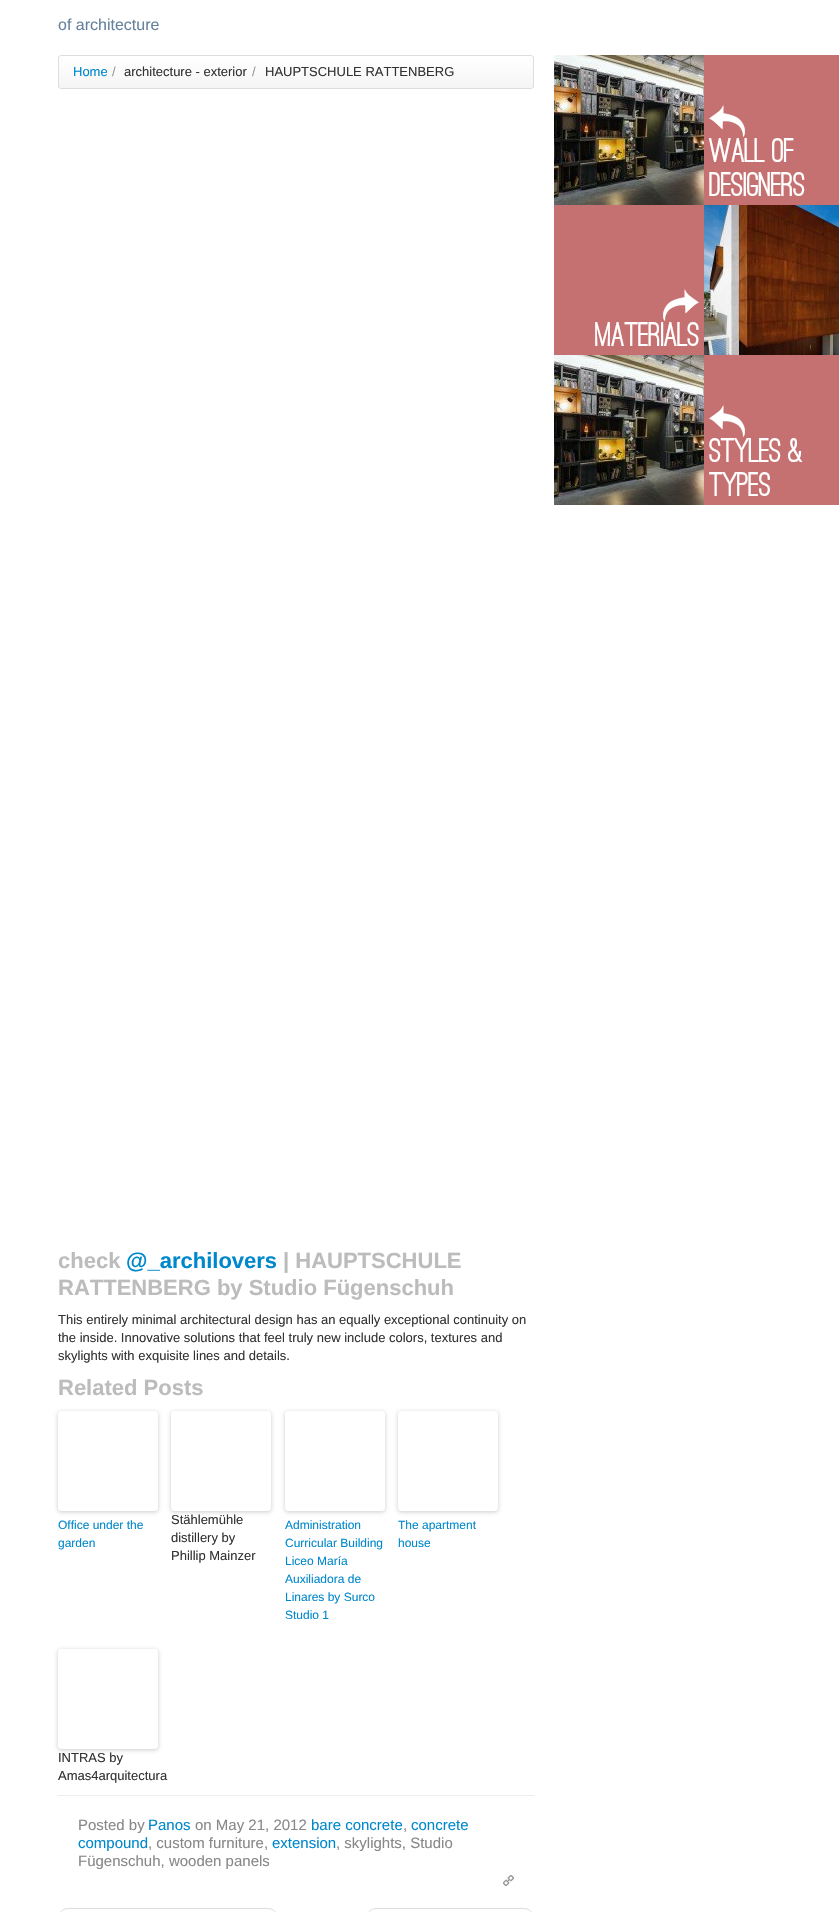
void draw(SkCanvas* canvas) {
  SkPaint paint;
  paint.setAntiAlias(true);
  auto face = [&](const char* family, int weight, float size, bool italic = false) {
    SkFontStyle style(weight, SkFontStyle::kNormal_Width,
      italic ? SkFontStyle::kItalic_Slant : SkFontStyle::kUpright_Slant);
    SkFont result(fontMgr->matchFamilyStyle(family, style), size);
    result.setSubpixel(true);
    return result;
  };
  auto paste = [&](const char* path, float x, float y, float w, float h) {
    auto image = SkImages::DeferredFromEncodedData(SkData::MakeFromFileName(path));
    canvas->drawImageRect(image, SkRect::MakeXYWH(x, y, w, h), SkSamplingOptions());
  };
  auto shape = [&](const char* data, bool evenOdd = false) {
    SkPath result = *SkParsePath::FromSVGString(data);
    if (evenOdd) result.setFillType(SkPathFillType::kEvenOdd);
    return result;
  };
  canvas->clear(0xffffffff);
  canvas->save();
  canvas->clipPath(shape("M61 55H531C532.5 55 534 56.5 534 58V86C534 87.5 532.5 89 531 89H61C59.5 89 58 87.5 58 86V58C58 56.5 59.5 55 61 55Z"), true);
  {
    const SkColor colors[] = {0xffffffff, 0xfff5f5f5};
    const float stops[] = {0, 1};
    const SkPoint ends[] = {{296, 56}, {296, 88}};
    paint.setShader(SkGradientShader::MakeLinear(ends, colors, stops, 2, SkTileMode::kClamp));
    paint.setAlpha(255);
  }
  canvas->drawRect(SkRect::MakeXYWH(58, 56, 476, 32), paint);
  canvas->restore();
  paint.setStroke(true);
  paint.setStrokeWidth(1);
  paint.setShader(nullptr);
  paint.setColor(0xffdddddd);
  canvas->drawRoundRect(SkRect::MakeXYWH(58.5f, 55.5f, 475, 33), 2.5f, 2.5f, paint);
  canvas->save();
  canvas->clipPath(shape("M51 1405H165V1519H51ZM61 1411H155C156.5 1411 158 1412.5 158 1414V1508C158 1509.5 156.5 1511 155 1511H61C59.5 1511 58 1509.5 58 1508V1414C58 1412.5 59.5 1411 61 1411Z", true), true);
  paint.setStroke(false);
  paint.setColor(0x33000000);
  paint.setMaskFilter(SkMaskFilter::MakeBlur(kNormal_SkBlurStyle, 2));
  canvas->drawRoundRect(SkRect::MakeXYWH(58, 1412, 100, 100), 3, 3, paint);
  paint.setMaskFilter(nullptr);
  canvas->restore();
  canvas->save();
  canvas->clipPath(shape("M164 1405H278V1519H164ZM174 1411H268C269.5 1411 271 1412.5 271 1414V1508C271 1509.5 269.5 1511 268 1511H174C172.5 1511 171 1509.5 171 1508V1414C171 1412.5 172.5 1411 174 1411Z", true), true);
  paint.setMaskFilter(SkMaskFilter::MakeBlur(kNormal_SkBlurStyle, 2));
  canvas->drawRoundRect(SkRect::MakeXYWH(171, 1412, 100, 100), 3, 3, paint);
  paint.setMaskFilter(nullptr);
  canvas->restore();
  canvas->save();
  canvas->clipPath(shape("M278 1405H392V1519H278ZM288 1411H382C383.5 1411 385 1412.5 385 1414V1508C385 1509.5 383.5 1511 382 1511H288C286.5 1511 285 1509.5 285 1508V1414C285 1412.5 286.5 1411 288 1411Z", true), true);
  paint.setMaskFilter(SkMaskFilter::MakeBlur(kNormal_SkBlurStyle, 2));
  canvas->drawRoundRect(SkRect::MakeXYWH(285, 1412, 100, 100), 3, 3, paint);
  paint.setMaskFilter(nullptr);
  canvas->restore();
  canvas->save();
  canvas->clipPath(shape("M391 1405H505V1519H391ZM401 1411H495C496.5 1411 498 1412.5 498 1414V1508C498 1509.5 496.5 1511 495 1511H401C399.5 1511 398 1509.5 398 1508V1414C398 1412.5 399.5 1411 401 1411Z", true), true);
  paint.setMaskFilter(SkMaskFilter::MakeBlur(kNormal_SkBlurStyle, 2));
  canvas->drawRoundRect(SkRect::MakeXYWH(398, 1412, 100, 100), 3, 3, paint);
  paint.setMaskFilter(nullptr);
  canvas->restore();
  canvas->save();
  canvas->clipPath(shape("M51 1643H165V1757H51ZM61 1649H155C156.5 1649 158 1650.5 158 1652V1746C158 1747.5 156.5 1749 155 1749H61C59.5 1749 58 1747.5 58 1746V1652C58 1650.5 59.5 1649 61 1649Z", true), true);
  paint.setMaskFilter(SkMaskFilter::MakeBlur(kNormal_SkBlurStyle, 2));
  canvas->drawRoundRect(SkRect::MakeXYWH(58, 1650, 100, 100), 3, 3, paint);
  paint.setMaskFilter(nullptr);
  canvas->restore();
  paint.setColor(0xffeeeeee);
  canvas->drawRect(SkRect::MakeXYWH(58, 1795, 476, 1), paint);
  paste("img/1.png", 503, 1875, 11, 11);
  paint.setStroke(true);
  paint.setColor(0xffdddddd);
  canvas->drawRoundRect(SkRect::MakeXYWH(58.5f, 1908.5f, 219, 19), 14.5f, 14.5f, paint);
  canvas->drawRoundRect(SkRect::MakeXYWH(366.5f, 1908.5f, 167, 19), 14.5f, 14.5f, paint);
  paste("img/2.png", 554, 55, 150, 150);
  paint.setStroke(false);
  paint.setColor(0xffc67171);
  canvas->drawRect(SkRect::MakeXYWH(704, 55, 135, 150), paint);
  paste("img/3.png", 709, 105, 36, 32);
  canvas->drawRect(SkRect::MakeXYWH(554, 205, 150, 150), paint);
  paste("img/4.png", 663, 289, 36, 32);
  paste("img/5.png", 704, 205, 135, 150);
  paste("img/2.png", 554, 355, 150, 150);
  canvas->drawRect(SkRect::MakeXYWH(704, 355, 135, 150), paint);
  paste("img/3.png", 709, 405, 36, 32);
  auto f0 = face("Liberation Sans", 400, 16);
  paint.setColor(0xff66829d);
  canvas->drawString("of architecture", 58, 30, f0, paint);
  auto f1 = face("Liberation Sans", 400, 13);
  paint.setColor(0xff0088cc);
  canvas->drawString("Home", 73, 76, f1, paint);
  paint.setColor(0xff999999);
  canvas->drawString("/", 112, 76, f1, paint);
  paint.setColor(0xff333333);
  canvas->drawString("architecture - exterior", 124, 76, f1, paint);
  paint.setColor(0xff999999);
  canvas->drawString("/", 252, 76, f1, paint);
  paint.setColor(0xff333333);
  canvas->drawString("HAUPTSCHULE RATTENBERG", 265, 76, f1, paint);
  auto f2 = face("Liberation Sans", 700, 22);
  paint.setColor(0xffbcbcbc);
  canvas->drawString("check", 58, 1268, f2, paint);
  paint.setColor(0xff0088cc);
  canvas->drawString("@_archilovers", 126, 1268, f2, paint);
  paint.setColor(0xffbcbcbc);
  canvas->drawString("| HAUPTSCHULE", 283, 1268, f2, paint);
  canvas->drawString("RATTENBERG by Studio Fügenschuh", 58, 1295, f2, paint);
  paint.setColor(0xff333333);
  {
    const struct { const char* s; float x, y; } items[] = {
      {"This entirely minimal architectural design has an equally exceptional continuity on", 58, 1324},
      {"the inside. Innovative solutions that feel truly new include colors, textures and", 58, 1342},
      {"skylights with exquisite lines and details.", 58, 1360},
    };
    for (auto [s, x, y] : items) {
      canvas->drawString(s, x, y, f1, paint);
    }
  }
  paint.setColor(0xffbcbcbc);
  canvas->drawString("Related Posts", 58, 1395, f2, paint);
  auto f3 = face("Liberation Sans", 400, 12);
  paint.setColor(0xff0088cc);
  canvas->drawString("Office under the", 58, 1529, f3, paint);
  canvas->drawString("garden", 58, 1547, f3, paint);
  paint.setColor(0xff333333);
  {
    const struct { const char* s; float x, y; } items[] = {
      {"Stählemühle", 171, 1524},
      {"distillery by", 171, 1542},
      {"Phillip Mainzer", 171, 1560},
    };
    for (auto [s, x, y] : items) {
      canvas->drawString(s, x, y, f1, paint);
    }
  }
  paint.setColor(0xff0088cc);
  {
    const struct { const char* s; float x, y; } items[] = {
      {"Administration", 285, 1529},
      {"Curricular Building", 285, 1547},
      {"Liceo María", 285, 1565},
      {"Auxiliadora de", 285, 1583},
      {"Linares by Surco", 285, 1601},
      {"Studio 1", 285, 1619},
      {"The apartment", 398, 1529},
      {"house", 398, 1547},
    };
    for (auto [s, x, y] : items) {
      canvas->drawString(s, x, y, f3, paint);
    }
  }
  paint.setColor(0xff333333);
  canvas->drawString("INTRAS by", 58, 1762, f1, paint);
  canvas->drawString("Amas4arquitectura", 58, 1780, f1, paint);
  auto f4 = face("Liberation Sans", 400, 15);
  paint.setColor(0xff888888);
  canvas->drawString("Posted by", 78, 1830, f4, paint);
  paint.setColor(0xff0088cc);
  canvas->drawString("Panos", 148, 1830, f4, paint);
  paint.setColor(0xff888888);
  canvas->drawString("on May 21, 2012", 195, 1830, f4, paint);
  paint.setColor(0xff0088cc);
  canvas->drawString("bare concrete", 311, 1830, f4, paint);
  paint.setColor(0xff888888);
  canvas->drawString(",", 403, 1830, f4, paint);
  paint.setColor(0xff0088cc);
  canvas->drawString("concrete", 411, 1830, f4, paint);
  canvas->drawString("compound", 78, 1848, f4, paint);
  paint.setColor(0xff888888);
  canvas->drawString(", custom furniture,", 148, 1848, f4, paint);
  paint.setColor(0xff0088cc);
  canvas->drawString("extension", 272, 1848, f4, paint);
  paint.setColor(0xff888888);
  canvas->drawString(", skylights, Studio", 336, 1848, f4, paint);
  canvas->drawString("Fügenschuh, wooden panels", 78, 1866, f4, paint);
  auto f5 = face("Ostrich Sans", 700, 34);
  paint.setColor(0xffffffff);
  {
    const struct { const char* s; float x, y; } items[] = {
      {"wall of", 709, 162},
      {"designers", 709, 196},
      {"materials", 595, 346},
      {"styles &", 709, 462},
      {"types", 709, 496},
    };
    for (auto [s, x, y] : items) {
      canvas->drawString(s, x, y, f5, paint);
    }
  }
}
